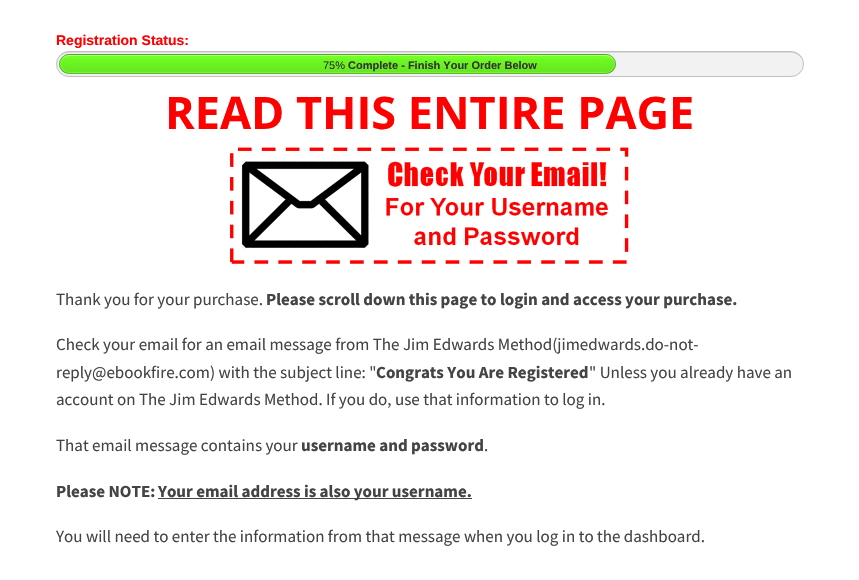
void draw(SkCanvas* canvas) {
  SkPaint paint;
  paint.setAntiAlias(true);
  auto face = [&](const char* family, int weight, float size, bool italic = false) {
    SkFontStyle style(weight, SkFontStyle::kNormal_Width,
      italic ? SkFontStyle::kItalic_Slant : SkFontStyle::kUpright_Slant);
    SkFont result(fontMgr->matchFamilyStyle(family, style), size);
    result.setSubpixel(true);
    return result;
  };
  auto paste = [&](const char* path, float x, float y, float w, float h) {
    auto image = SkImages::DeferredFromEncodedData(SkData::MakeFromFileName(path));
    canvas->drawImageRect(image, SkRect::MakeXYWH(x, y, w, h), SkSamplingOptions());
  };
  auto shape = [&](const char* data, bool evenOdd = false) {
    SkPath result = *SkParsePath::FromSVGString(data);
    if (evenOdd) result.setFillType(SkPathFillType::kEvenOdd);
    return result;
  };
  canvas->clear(0xffffffff);
  paint.setColor(0xfff2f2f2);
  canvas->drawRoundRect(SkRect::MakeXYWH(56, 51, 748, 26), 13, 13, paint);
  paint.setColor(0xffdadada);
  canvas->drawPath(shape("M69 53H791C798 53 803 58 803 64C803 62 802 59 801 57C799 54 795 52 791 52H69C62 52 57 58 57 64C57 58 62 53 69 53Z"), paint);
  paint.setStroke(true);
  paint.setStrokeWidth(1);
  paint.setColor(0x33000000);
  canvas->drawRoundRect(SkRect::MakeXYWH(56.5f, 51.5f, 747, 25), 12.5f, 12.5f, paint);
  paint.setStroke(false);
  paint.setColor(0xff71ff24);
  canvas->drawRoundRect(SkRect::MakeXYWH(59, 54, 557, 20), 10, 10, paint);
  canvas->save();
  canvas->clipPath(shape("M69 54H606C611.5 54 616 58.5 616 64C616 69.5 611.5 74 606 74H69C63.5 74 59 69.5 59 64C59 58.5 63.5 54 69 54Z"), true);
  {
    const SkColor colors[] = {0x00000000, 0x1a000000};
    const float stops[] = {0, 1};
    const SkPoint ends[] = {{338, 37}, {338, 55}};
    paint.setShader(SkGradientShader::MakeLinear(ends, colors, stops, 2, SkTileMode::kClamp));
    paint.setAlpha(255);
  }
  canvas->drawRect(SkRect::MakeXYWH(59, 54, 557, 1), paint);
  {
    const SkColor colors[] = {0x00000000, 0x1a000000};
    const float stops[] = {0, 1};
    const SkPoint ends[] = {{338, 55}, {338, 73}};
    paint.setShader(SkGradientShader::MakeLinear(ends, colors, stops, 2, SkTileMode::kClamp));
    paint.setAlpha(255);
  }
  canvas->drawRect(SkRect::MakeXYWH(59, 59, 557, 14), paint);
  canvas->restore();
  paint.setStroke(true);
  paint.setShader(nullptr);
  paint.setColor(0x33ffffff);
  canvas->drawRoundRect(SkRect::MakeXYWH(60.5f, 55.5f, 554, 17), 8.5f, 8.5f, paint);
  paint.setStroke(false);
  paint.setColor(0x59ffffff);
  canvas->drawPath(shape("M69 56H606C610 56 614 59 615 63C614 58 611 55 606 55H69C64 55 60 59 60 64C60 60 63 56 69 56Z"), paint);
  paint.setStroke(true);
  paint.setColor(0x40000000);
  canvas->drawRoundRect(SkRect::MakeXYWH(59.5f, 54.5f, 556, 19), 9.5f, 9.5f, paint);
  paste("img/1.png", 230, 147, 399, 117);
  paint.setStroke(false);
  paint.setColor(0xff444444);
  canvas->drawRect(SkRect::MakeXYWH(158, 498, 314, 1), paint);
  auto f0 = face("Liberation Sans", 700, 14);
  paint.setColor(0xffff0000);
  canvas->drawString("Registration Status:", 56, 45, f0, paint);
  auto f1 = face("Liberation Sans", 400, 11);
  paint.setColor(0xff333333);
  canvas->drawString("75%", 323, 69, f1, paint);
  auto f2 = face("Liberation Sans", 700, 11);
  canvas->drawString("Complete - Finish Your Order Below", 348, 69, f2, paint);
  auto f3 = face("Open Sans", 700, 45);
  paint.setColor(0xffff0000);
  canvas->drawString("READ THIS ENTIRE PAGE", 165, 129, f3, paint);
  auto f4 = face("Source Sans Pro", 400, 17);
  paint.setColor(0xff444444);
  canvas->drawString("Thank you for your purchase.", 56, 305, f4, paint);
  auto f5 = face("Source Sans Pro", 700, 17);
  canvas->drawString("Please scroll down this page to login and access your purchase.", 266, 305, f5, paint);
  canvas->drawString("Check your email for an email message from The Jim Edwards Method(jimedwards.do-not-", 56, 350, f4, paint);
  canvas->drawString("reply@ebookfire.com) with the subject line: \"", 56, 378, f4, paint);
  canvas->drawString("Congrats You Are Registered", 376, 378, f5, paint);
  {
    const struct { const char* s; float x, y; } items[] = {
      {"\" Unless you already have an", 589, 378},
      {"account on The Jim Edwards Method. If you do, use that information to log in.", 56, 405},
      {"That email message contains your", 56, 451},
    };
    for (auto [s, x, y] : items) {
      canvas->drawString(s, x, y, f4, paint);
    }
  }
  canvas->drawString("username and password", 301, 451, f5, paint);
  canvas->drawString(".", 484, 451, f4, paint);
  canvas->drawString("Please NOTE:", 56, 497, f5, paint);
  canvas->drawString("Your email address is also your username.", 158, 497, f5, paint);
  canvas->drawString("You will need to enter the information from that message when you log in to the dashboard.", 56, 542, f4, paint);
}
